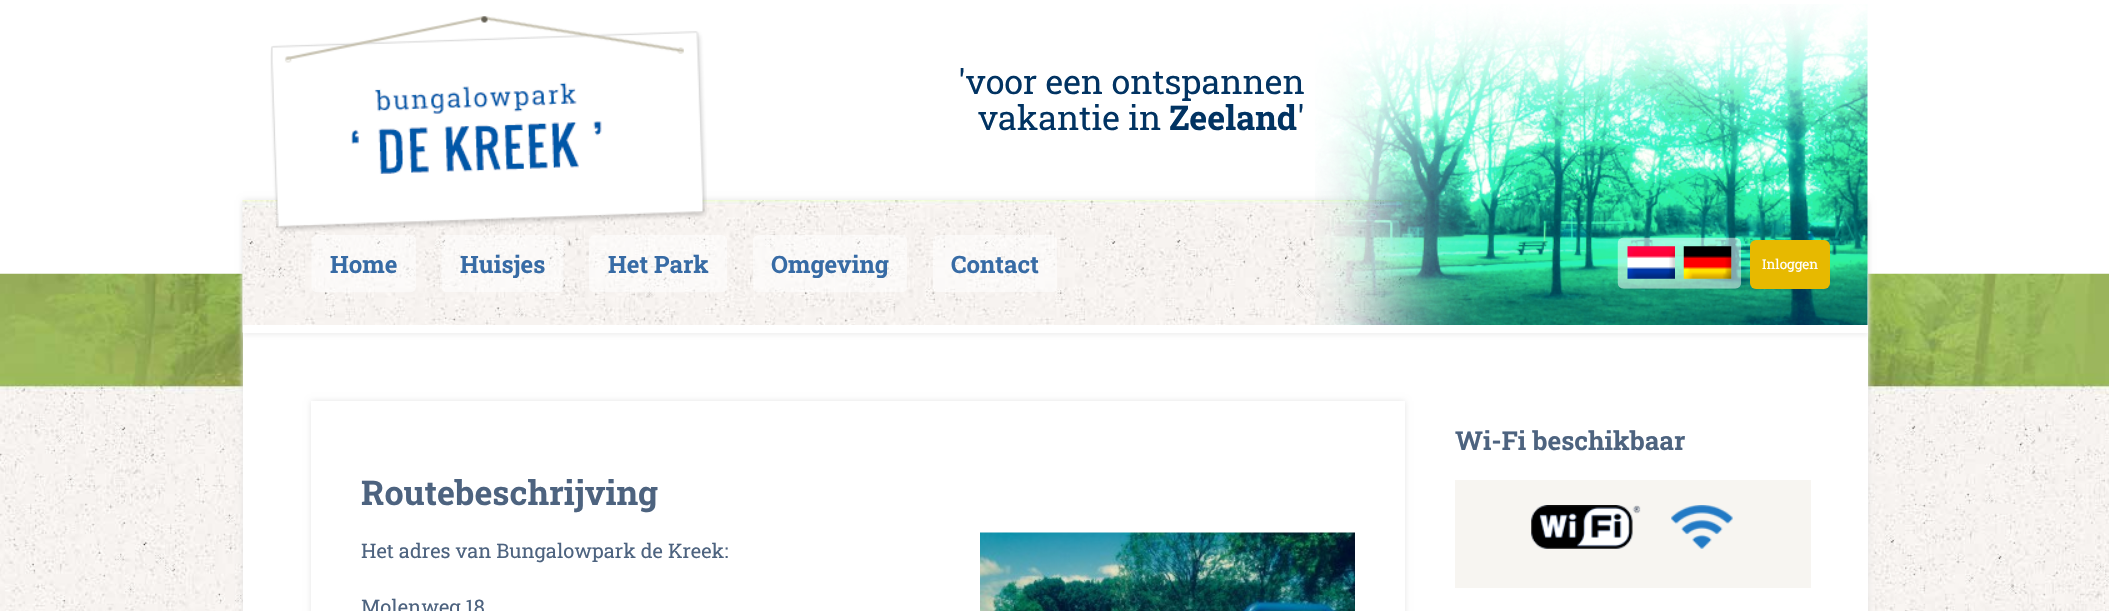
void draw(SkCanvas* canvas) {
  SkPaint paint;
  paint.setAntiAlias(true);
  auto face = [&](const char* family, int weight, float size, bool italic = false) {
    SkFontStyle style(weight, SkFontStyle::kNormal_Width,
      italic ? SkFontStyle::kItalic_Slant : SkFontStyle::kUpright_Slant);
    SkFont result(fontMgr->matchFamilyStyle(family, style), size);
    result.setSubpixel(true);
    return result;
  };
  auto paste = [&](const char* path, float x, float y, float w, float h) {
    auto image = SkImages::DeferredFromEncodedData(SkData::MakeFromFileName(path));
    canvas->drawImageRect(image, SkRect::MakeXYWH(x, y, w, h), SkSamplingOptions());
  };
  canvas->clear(0xffffffff);
  paste("img/1.png", 0, 273, 2109, 338);
  paint.setColor(0xffe5e5e5);
  paint.setMaskFilter(SkMaskFilter::MakeBlur(kNormal_SkBlurStyle, 3));
  canvas->drawRect(SkRect::MakeXYWH(243, 200, 1625, 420), paint);
  paint.setMaskFilter(nullptr);
  paint.setColor(0xffffffff);
  canvas->drawRect(SkRect::MakeXYWH(243, 200, 1625, 411), paint);
  paint.setColor(0x80e5e5e5);
  paint.setMaskFilter(SkMaskFilter::MakeBlur(kNormal_SkBlurStyle, 2));
  canvas->drawRect(SkRect::MakeXYWH(243, 204, 1625, 132), paint);
  paint.setMaskFilter(nullptr);
  paste("img/2.png", 242, 200, 1626, 133);
  paste("img/3.png", 270, 16, 437, 216);
  paste("img/4.png", 1315, 4, 553, 321);
  paint.setColor(0xffffffff);
  canvas->drawRect(SkRect::MakeXYWH(243, 325, 1625, 8), paint);
  paste("img/5.png", 311, 235, 105, 58);
  paste("img/6.png", 441, 235, 123, 57);
  paste("img/7.png", 589, 235, 138, 58);
  paste("img/8.png", 753, 235, 154, 58);
  paste("img/9.png", 933, 235, 124, 57);
  paste("img/10.png", 1617, 237, 125, 52);
  paste("img/11.png", 1627, 246, 48, 33);
  paste("img/12.png", 1683, 246, 49, 33);
  paint.setColor(0xffe7b900);
  canvas->drawRoundRect(SkRect::MakeXYWH(1750, 240, 80, 49), 6, 6, paint);
  paint.setColor(0xfff7f5f1);
  canvas->drawRect(SkRect::MakeXYWH(1455, 480, 356, 108), paint);
  paste("img/13.png", 1531, 505, 202, 44);
  paint.setColor(0xffe5e5e5);
  paint.setMaskFilter(SkMaskFilter::MakeBlur(kNormal_SkBlurStyle, 3));
  canvas->drawRect(SkRect::MakeXYWH(311, 401, 1094, 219), paint);
  paint.setMaskFilter(nullptr);
  paint.setColor(0xffffffff);
  canvas->drawRect(SkRect::MakeXYWH(311, 401, 1094, 210), paint);
  paste("img/14.png", 980, 532, 375, 79);
  auto f0 = face("Roboto Slab", 400, 34);
  paint.setColor(0xff013362);
  canvas->drawString("'voor een ontspannen", 958, 94, f0, paint);
  canvas->drawString("vakantie in", 978, 130, f0, paint);
  auto f1 = face("Roboto Slab", 700, 34);
  canvas->drawString("Zeeland", 1169, 130, f1, paint);
  canvas->drawString("'", 1297, 130, f0, paint);
  auto f2 = face("Roboto Slab", 700, 24);
  paint.setColor(0xff376ba5);
  {
    const struct { const char* s; float x, y; } items[] = {
      {"Home", 330, 273},
      {"Huisjes", 460, 273},
      {"Het Park", 608, 273},
      {"Omgeving", 771, 273},
      {"Contact", 951, 273},
    };
    for (auto [s, x, y] : items) {
      canvas->drawString(s, x, y, f2, paint);
    }
  }
  auto f3 = face("Roboto Slab", 400, 13.5f);
  paint.setColor(0xffffffff);
  canvas->drawString("Inloggen", 1762, 269, f3, paint);
  auto f4 = face("Roboto Slab", 700, 26);
  paint.setColor(0xff4d637f);
  canvas->drawString("Wi-Fi beschikbaar", 1455, 450, f4, paint);
  canvas->drawString("Routebeschrijving", 361, 505, f1, paint);
  auto f5 = face("Roboto Slab", 400, 20);
  canvas->drawString("Het adres van Bungalowpark de Kreek:", 361, 558, f5, paint);
  canvas->drawString("Molenweg 18", 361, 614, f5, paint);
}
